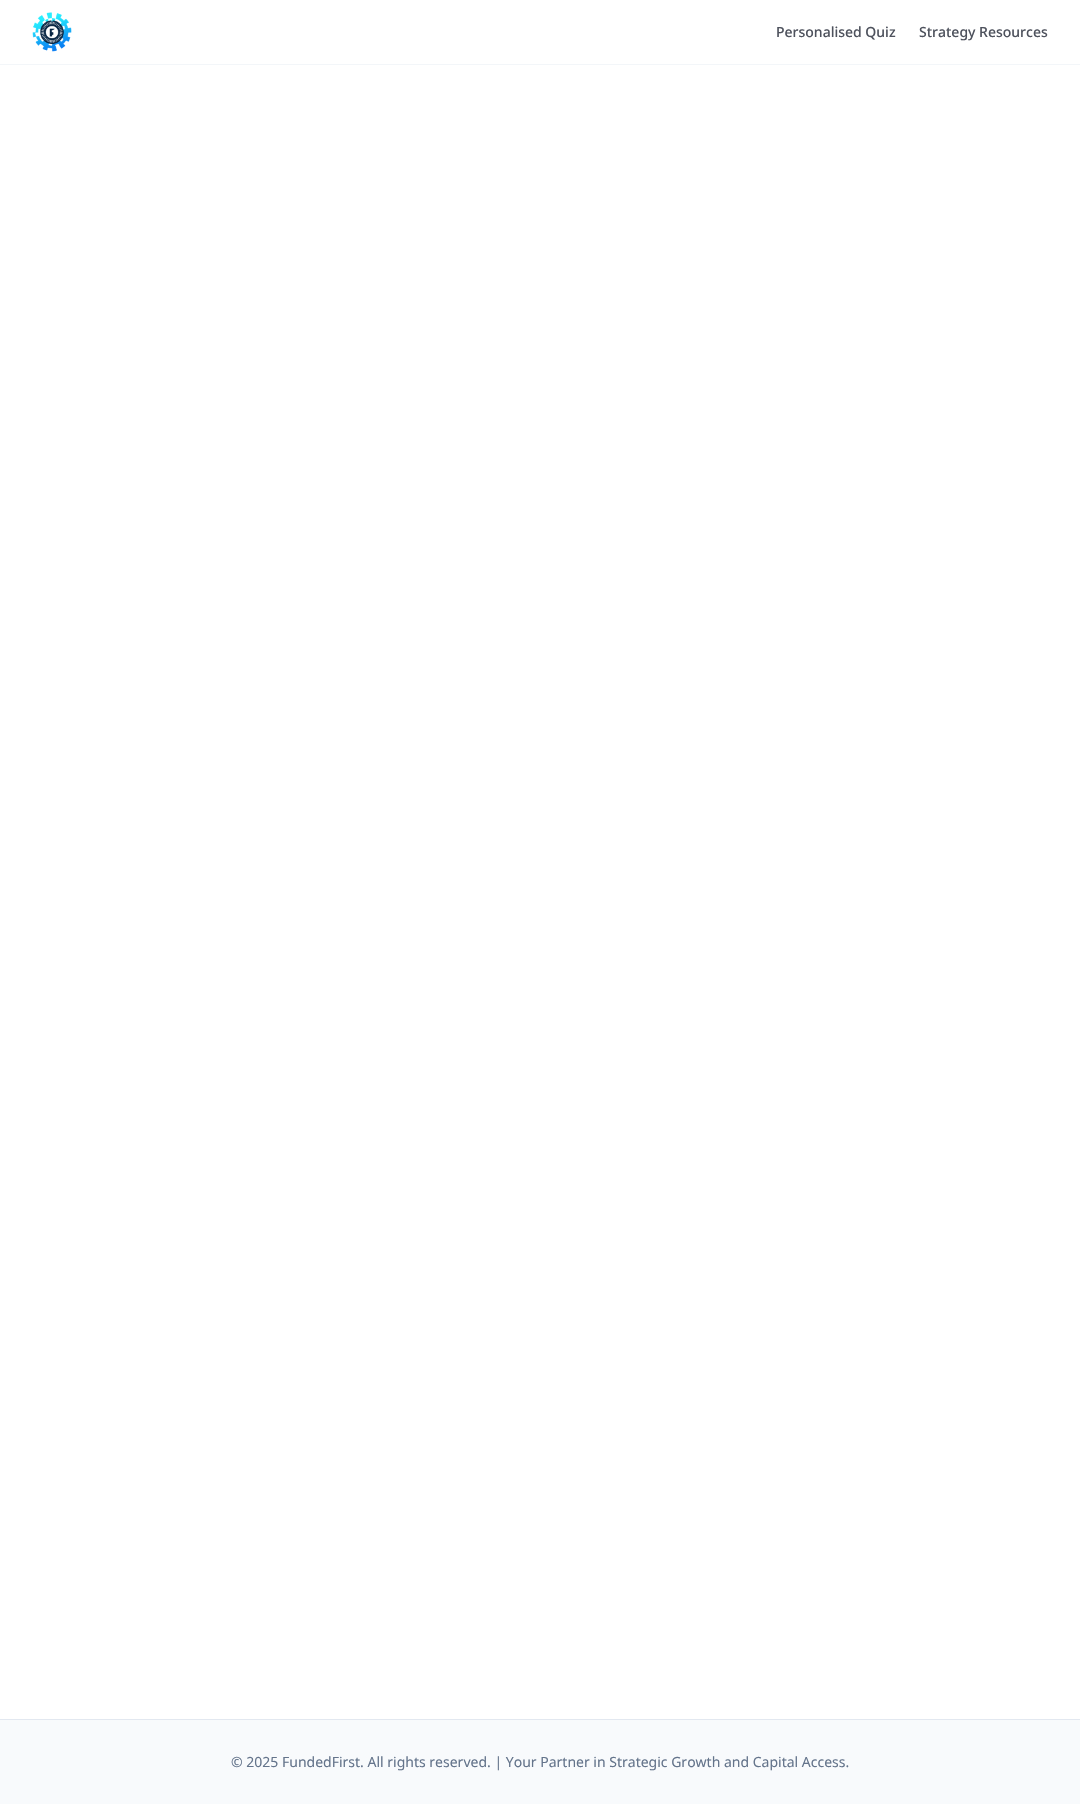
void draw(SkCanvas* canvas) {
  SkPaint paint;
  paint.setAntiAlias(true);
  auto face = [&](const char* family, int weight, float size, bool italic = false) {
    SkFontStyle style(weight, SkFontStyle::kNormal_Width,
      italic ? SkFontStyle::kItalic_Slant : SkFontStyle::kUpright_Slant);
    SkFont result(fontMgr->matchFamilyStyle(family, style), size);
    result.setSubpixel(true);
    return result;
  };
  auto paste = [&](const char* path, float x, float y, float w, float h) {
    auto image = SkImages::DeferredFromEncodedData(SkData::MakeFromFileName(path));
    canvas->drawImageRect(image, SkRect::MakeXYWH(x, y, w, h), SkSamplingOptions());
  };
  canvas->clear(0xffffffff);
  paint.setColor(0xfff3f6f9);
  canvas->drawRect(SkRect::MakeXYWH(0, 64, 1080, 1), paint);
  paste("img/1.png", 32, 12, 40, 40);
  paint.setColor(0xfff8fafc);
  canvas->drawRect(SkRect::MakeXYWH(0, 1720, 1080, 84), paint);
  paint.setColor(0xffe2e8f0);
  canvas->drawRect(SkRect::MakeXYWH(0, 1719, 1080, 1), paint);
  auto f0 = face("Noto Sans", 500, 14);
  paint.setColor(0xff4e525d);
  canvas->drawString("Personalised Quiz", 776, 37, f0, paint);
  canvas->drawString("Strategy Resources", 919, 37, f0, paint);
  auto f1 = face("Noto Sans", 400, 14);
  paint.setColor(0xff64748b);
  canvas->drawString("© 2025 FundedFirst. All rights reserved. | Your Partner in Strategic Growth and Capital Access.", 231, 1767, f1, paint);
}
